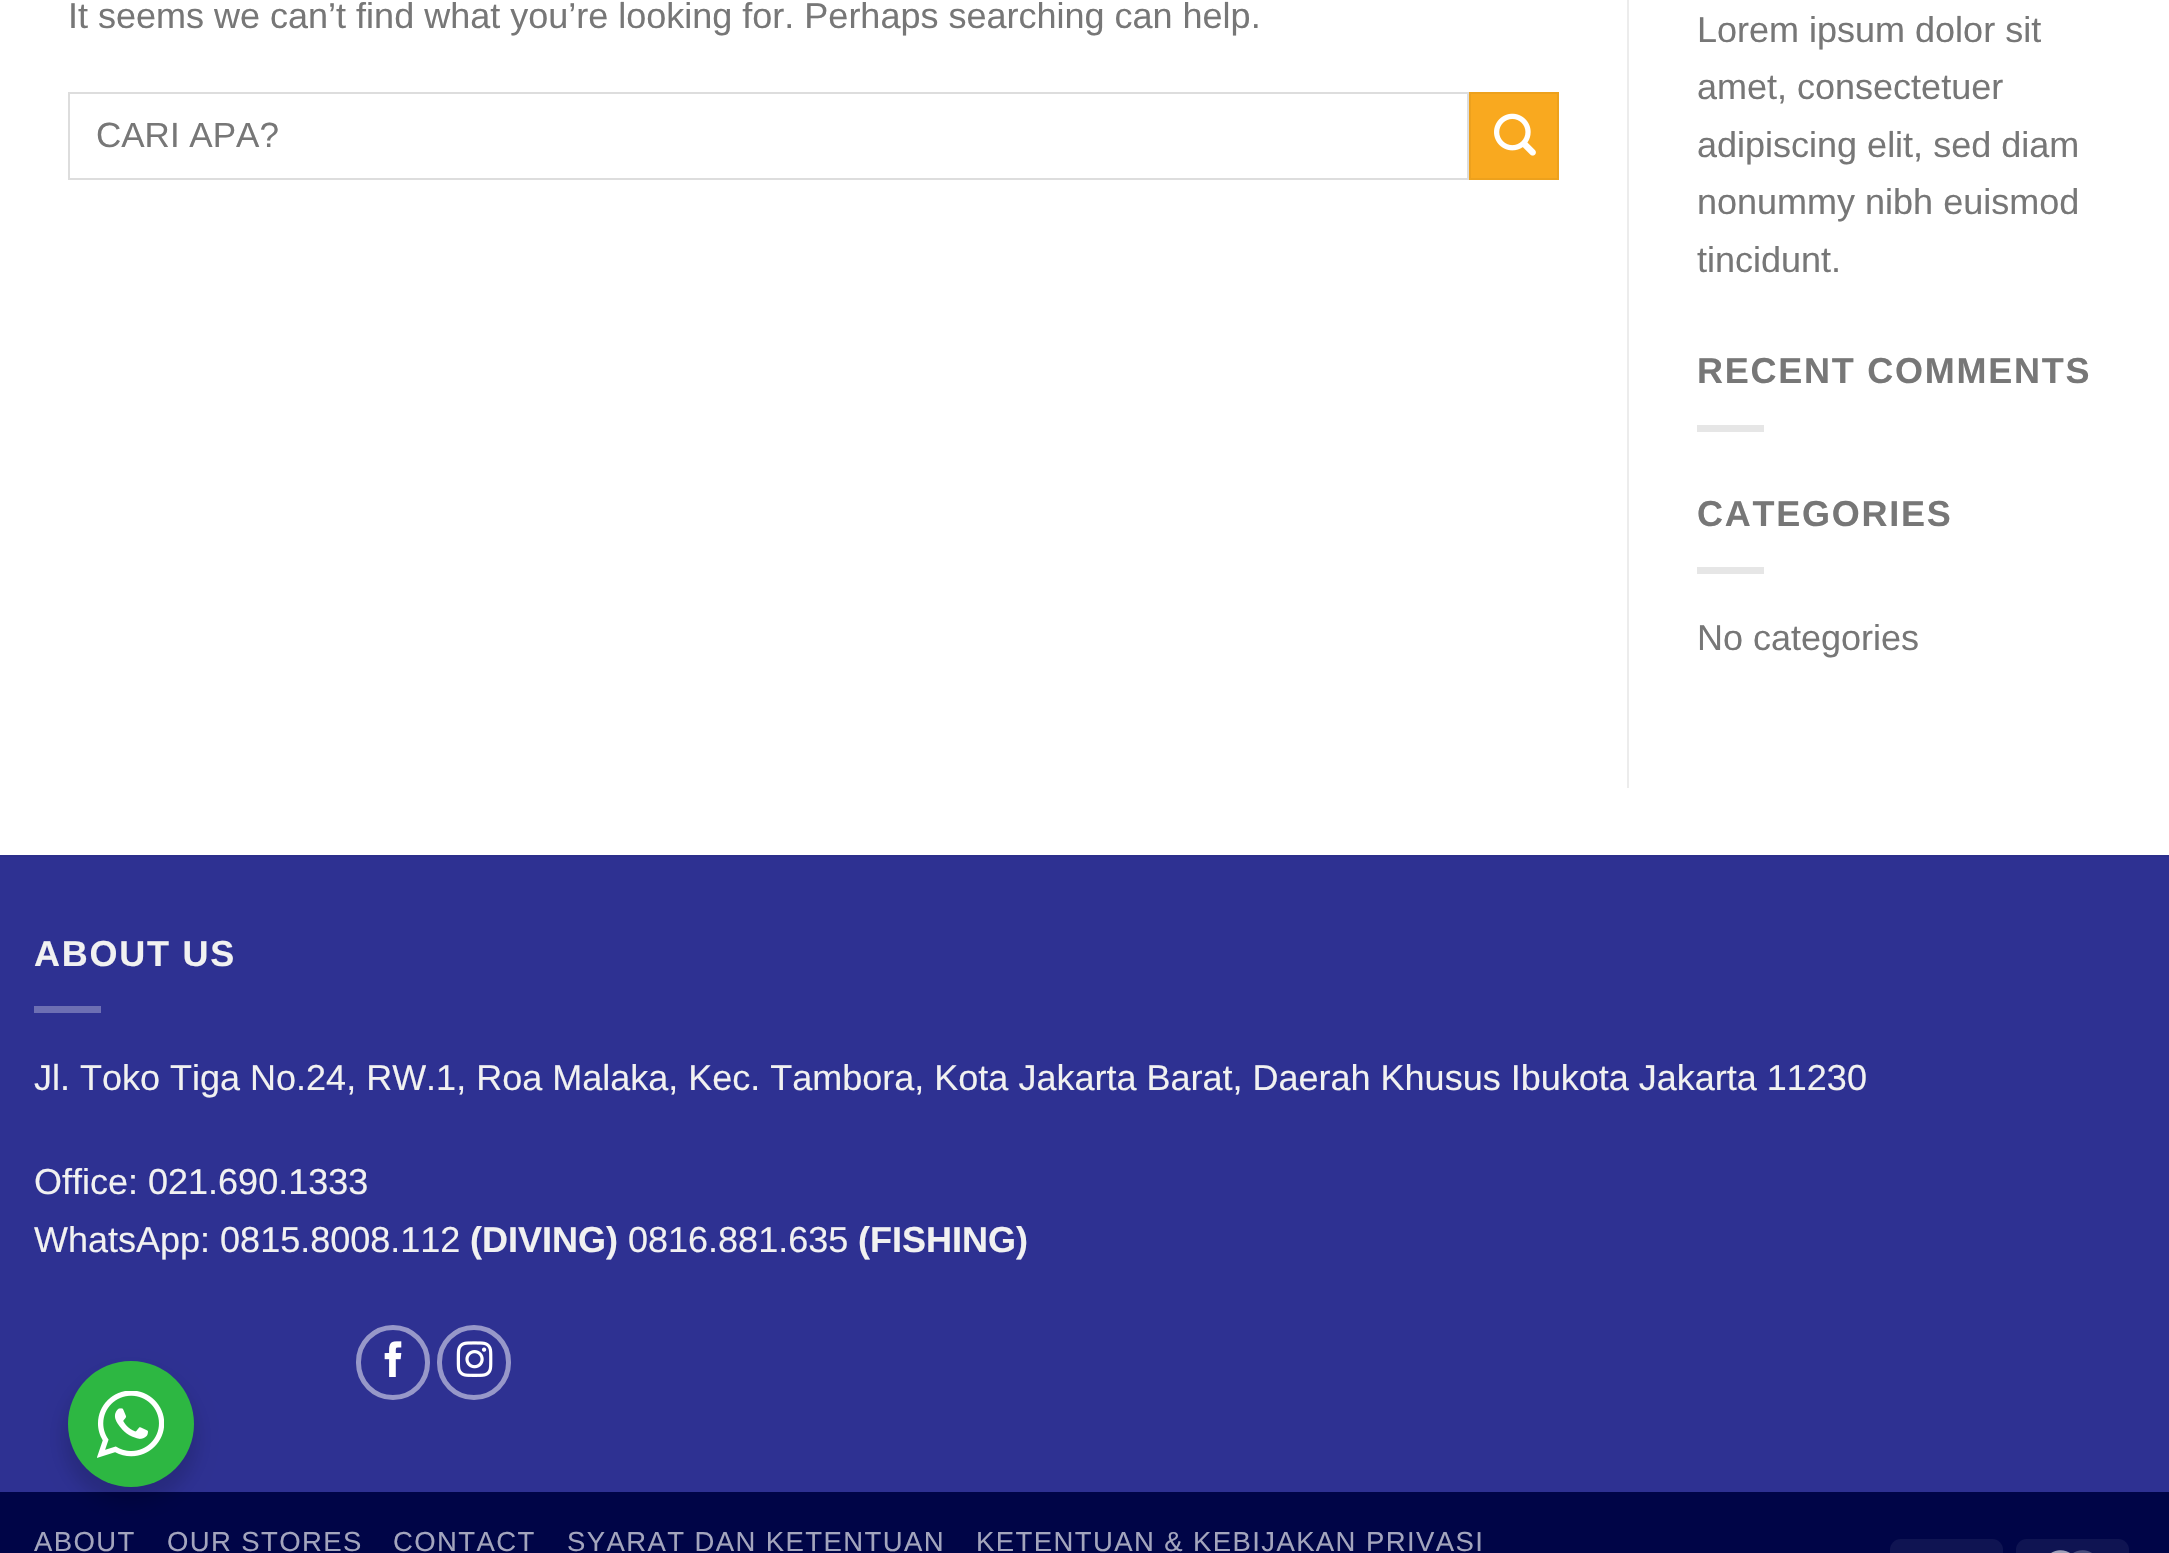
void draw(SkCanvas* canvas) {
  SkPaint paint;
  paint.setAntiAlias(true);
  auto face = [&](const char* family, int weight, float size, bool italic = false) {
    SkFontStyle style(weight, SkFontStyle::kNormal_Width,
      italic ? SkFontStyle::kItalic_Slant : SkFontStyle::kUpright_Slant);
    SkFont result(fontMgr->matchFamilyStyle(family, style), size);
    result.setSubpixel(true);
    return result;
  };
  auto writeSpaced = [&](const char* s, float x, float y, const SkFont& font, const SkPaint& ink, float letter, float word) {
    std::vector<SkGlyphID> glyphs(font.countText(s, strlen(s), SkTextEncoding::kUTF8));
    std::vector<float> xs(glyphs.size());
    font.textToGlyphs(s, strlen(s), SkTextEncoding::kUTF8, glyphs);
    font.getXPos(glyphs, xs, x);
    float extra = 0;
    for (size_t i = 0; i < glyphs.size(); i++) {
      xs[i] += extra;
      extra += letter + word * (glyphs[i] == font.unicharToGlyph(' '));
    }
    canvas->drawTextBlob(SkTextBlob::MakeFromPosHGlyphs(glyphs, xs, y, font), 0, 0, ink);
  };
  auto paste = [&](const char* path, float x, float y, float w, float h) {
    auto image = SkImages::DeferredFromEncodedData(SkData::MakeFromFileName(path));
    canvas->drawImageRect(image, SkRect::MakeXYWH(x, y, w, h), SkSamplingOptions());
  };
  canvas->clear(0xffffffff);
  paint.setStroke(true);
  paint.setStrokeWidth(2);
  paint.setColor(0xffdddddd);
  canvas->drawRect(SkRect::MakeXYWH(69, 93, 1399, 86), paint);
  paint.setStroke(false);
  paint.setColor(0xfff9a91f);
  canvas->drawRect(SkRect::MakeXYWH(1470, 93, 88, 86), paint);
  paint.setStroke(true);
  paint.setColor(0xffeda11d);
  canvas->drawRect(SkRect::MakeXYWH(1470, 93, 88, 86), paint);
  paste("img/1.png", 1494, 113, 42, 43);
  paint.setStroke(false);
  {
    const struct { float x, y, w, h; SkColor color; } items[] = {
      {1627, 0, 2, 788, 0xffececec},
      {1697, 425, 67, 7, 0xffe6e6e6},
      {1697, 567, 67, 7, 0xffe6e6e6},
      {0, 857, 2169, 635, 0xff2e3192},
      {0, 855, 2169, 2, 0xff2c2f8b},
      {34, 1006, 67, 7, 0xff6d6fb3},
    };
    for (auto [x, y, w, h, color] : items) {
      paint.setColor(color);
      canvas->drawRect(SkRect::MakeXYWH(x, y, w, h), paint);
    }
  }
  paint.setStroke(true);
  paint.setStrokeWidth(5);
  paint.setColor(0xff9798c9);
  canvas->drawRoundRect(SkRect::MakeXYWH(358.5f, 1327.5f, 69, 70), 34.5f, 34.5f, paint);
  paste("img/2.png", 384, 1341, 18, 36);
  canvas->drawRoundRect(SkRect::MakeXYWH(439.5f, 1327.5f, 69, 70), 34.5f, 34.5f, paint);
  paste("img/3.png", 456, 1341, 37, 36);
  paint.setStroke(false);
  paint.setColor(0xff000547);
  canvas->drawRect(SkRect::MakeXYWH(0, 1492, 2169, 61), paint);
  paint.setColor(0xff0f1452);
  canvas->drawRoundRect(SkRect::MakeXYWH(1890, 1539, 113, 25), 11, 11, paint);
  canvas->drawRoundRect(SkRect::MakeXYWH(2016, 1539, 113, 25), 11, 11, paint);
  paste("img/4.png", 2051, 1550, 41, 3);
  paint.setColor(0x24000000);
  paint.setMaskFilter(SkMaskFilter::MakeBlur(kNormal_SkBlurStyle, 9));
  canvas->drawRoundRect(SkRect::MakeXYWH(63, 1370, 135, 135), 67.5f, 67.5f, paint);
  paint.setMaskFilter(nullptr);
  paint.setColor(0xff2db742);
  canvas->drawCircle(131, 1424, 63, paint);
  paste("img/5.png", 97, 1391, 67, 67);
  auto f0 = face("Liberation Sans", 400, 36);
  paint.setColor(0xff777777);
  canvas->drawString("It seems we can’t find what you’re looking for. Perhaps searching can help.", 68, 28, f0, paint);
  auto f1 = face("Liberation Sans", 400, 35);
  canvas->drawString("CARI APA?", 96, 147, f1, paint);
  {
    const struct { const char* s; float x, y; } items[] = {
      {"Lorem ipsum dolor sit", 1697, 42},
      {"amet, consectetuer", 1697, 99},
      {"adipiscing elit, sed diam", 1697, 157},
      {"nonummy nibh euismod", 1697, 214},
      {"tincidunt.", 1697, 272},
    };
    for (auto [s, x, y] : items) {
      canvas->drawString(s, x, y, f0, paint);
    }
  }
  auto f2 = face("Liberation Sans", 700, 36);
  writeSpaced("RECENT COMMENTS", 1697, 383, f2, paint, 1.75f, 0);
  writeSpaced("CATEGORIES", 1697, 526, f2, paint, 1.75f, 0);
  canvas->drawString("No categories", 1697, 650, f0, paint);
  paint.setColor(0xfff1f1f1);
  writeSpaced("ABOUT US", 34, 966, f2, paint, 1.75f, 0);
  {
    const struct { const char* s; float x, y; } items[] = {
      {"Jl. Toko Tiga No.24, RW.1, Roa Malaka, Kec. Tambora, Kota Jakarta Barat, Daerah Khusus Ibukota Jakarta 11230", 34, 1090},
      {"Office: 021.690.1333", 34, 1194},
      {"WhatsApp: 0815.8008.112", 34, 1252},
    };
    for (auto [s, x, y] : items) {
      canvas->drawString(s, x, y, f0, paint);
    }
  }
  canvas->drawString("(DIVING)", 470, 1252, f2, paint);
  canvas->drawString("0816.881.635", 628, 1252, f0, paint);
  canvas->drawString("(FISHING)", 858, 1252, f2, paint);
  auto f3 = face("Liberation Sans", 400, 27.5f);
  paint.setColor(0xffa3a5bd);
  {
    const struct { const char* s; float x, y; } items[] = {
      {"ABOUT", 34, 1551},
      {"OUR STORES", 167, 1551},
      {"CONTACT", 393, 1551},
      {"SYARAT DAN KETENTUAN", 567, 1551},
      {"KETENTUAN & KEBIJAKAN PRIVASI", 976, 1551},
    };
    for (auto [s, x, y] : items) {
      writeSpaced(s, x, y, f3, paint, 1.4f, 0);
    }
  }
}
